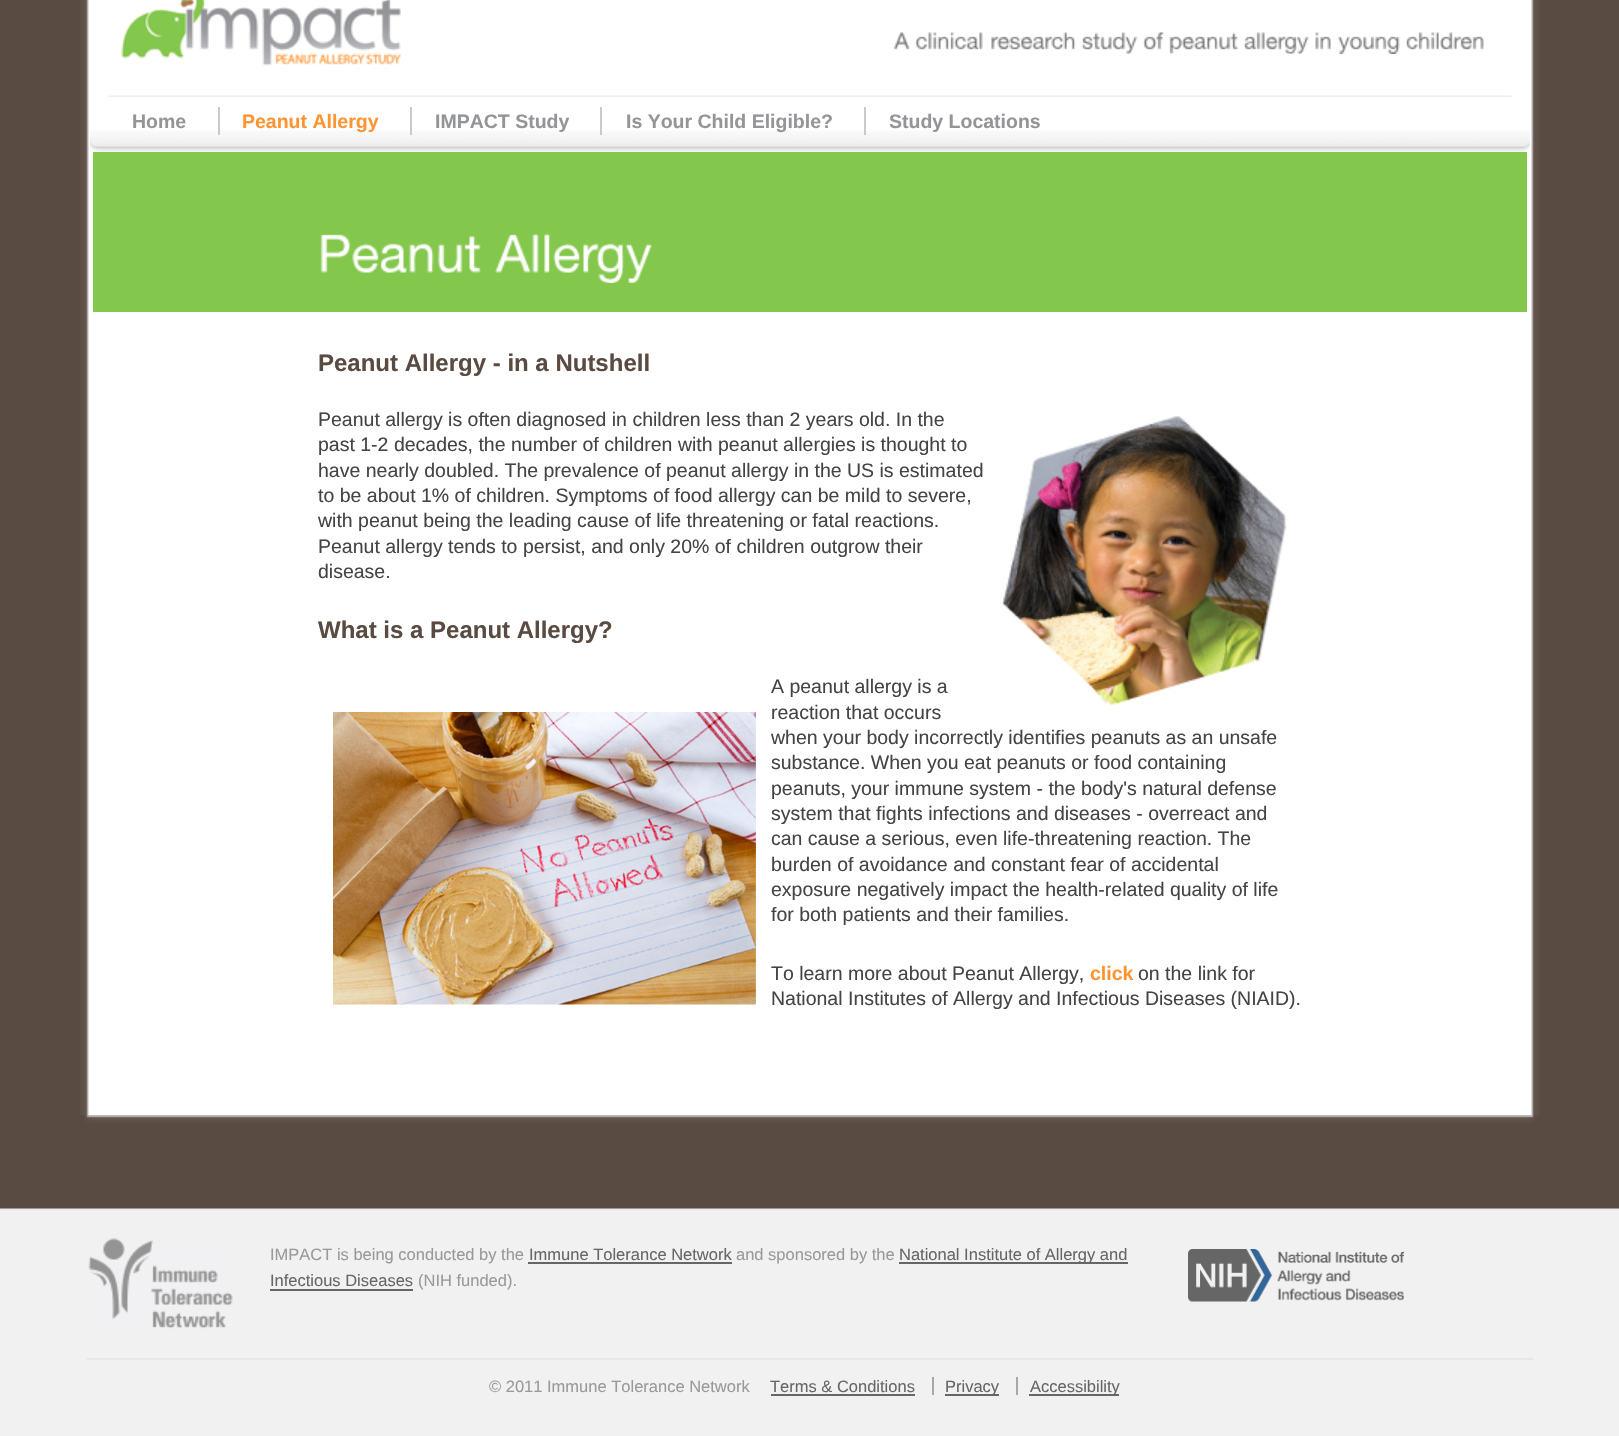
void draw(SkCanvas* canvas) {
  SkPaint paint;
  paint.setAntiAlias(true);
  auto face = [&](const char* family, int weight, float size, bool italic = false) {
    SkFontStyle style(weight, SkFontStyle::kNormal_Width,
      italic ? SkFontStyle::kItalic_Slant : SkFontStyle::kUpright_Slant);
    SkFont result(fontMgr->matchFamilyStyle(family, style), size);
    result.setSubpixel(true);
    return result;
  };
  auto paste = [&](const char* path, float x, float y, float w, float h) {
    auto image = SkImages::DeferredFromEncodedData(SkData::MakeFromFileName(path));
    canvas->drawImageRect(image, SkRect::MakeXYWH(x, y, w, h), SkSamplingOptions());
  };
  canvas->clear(0xff594a42);
  paste("img/1.png", 80, 0, 1460, 1116);
  paste("img/2.png", 121, 0, 280, 66);
  paste("img/3.png", 894, 32, 16, 18);
  paste("img/4.png", 915, 32, 68, 18);
  paste("img/5.png", 991, 32, 85, 18);
  paste("img/6.png", 1081, 32, 57, 22);
  paste("img/7.png", 1143, 32, 22, 18);
  paste("img/8.png", 1169, 32, 69, 22);
  paste("img/9.png", 1243, 32, 66, 22);
  paste("img/10.png", 1315, 32, 16, 18);
  paste("img/11.png", 1338, 36, 62, 18);
  paste("img/12.png", 1405, 32, 79, 18);
  paint.setColor(0xff84c74d);
  canvas->drawRect(SkRect::MakeXYWH(93, 152, 1434, 160), paint);
  paste("img/13.png", 90, 130, 1440, 23);
  paste("img/14.png", 108, 95, 1404, 2);
  {
    const struct { float x, y, w, h; SkColor color; } items[] = {
      {218, 107, 2, 28, 0xffcacacb},
      {410, 107, 2, 28, 0xffcacacb},
      {600, 107, 2, 28, 0xffcacacb},
      {864, 107, 2, 28, 0xffcacacb},
    };
    for (auto [x, y, w, h, color] : items) {
      paint.setColor(color);
      canvas->drawRect(SkRect::MakeXYWH(x, y, w, h), paint);
    }
  }
  paste("img/15.png", 320, 234, 161, 39);
  paste("img/16.png", 495, 233, 157, 50);
  paste("img/17.png", 1002, 415, 285, 290);
  paste("img/18.png", 333, 712, 423, 293);
  paste("img/19.png", 84, 1115, 1452, 8);
  paste("img/20.png", 0, 1208, 1619, 228);
  paste("img/21.png", 88, 1238, 145, 91);
  {
    const struct { float x, y, w, h; SkColor color; } items[] = {
      {528, 1262, 204, 2, 0xff666666},
      {899, 1262, 229, 2, 0xff666666},
      {270, 1289, 143, 2, 0xff666666},
    };
    for (auto [x, y, w, h, color] : items) {
      paint.setColor(color);
      canvas->drawRect(SkRect::MakeXYWH(x, y, w, h), paint);
    }
  }
  paste("img/22.png", 1188, 1249, 216, 53);
  {
    const struct { float x, y, w, h; SkColor color; } items[] = {
      {87, 1358, 1446, 2, 0xffe7e7e7},
      {771, 1394, 144, 2, 0xff666666},
      {932, 1377, 2, 18, 0xffa7a7a7},
      {945, 1394, 54, 2, 0xff666666},
      {1016, 1377, 2, 18, 0xffa7a7a7},
      {1029, 1394, 90, 2, 0xff666666},
    };
    for (auto [x, y, w, h, color] : items) {
      paint.setColor(color);
      canvas->drawRect(SkRect::MakeXYWH(x, y, w, h), paint);
    }
  }
  auto f0 = face("Liberation Sans", 700, 19.5f);
  paint.setColor(0xff939598);
  canvas->drawString("Home", 132, 128, f0, paint);
  paint.setColor(0xffff9433);
  canvas->drawString("Peanut Allergy", 242, 128, f0, paint);
  paint.setColor(0xff939598);
  {
    const struct { const char* s; float x, y; } items[] = {
      {"IMPACT Study", 435, 128},
      {"Is Your Child Eligible?", 626, 128},
      {"Study Locations", 889, 128},
    };
    for (auto [s, x, y] : items) {
      canvas->drawString(s, x, y, f0, paint);
    }
  }
  auto f1 = face("Liberation Sans", 700, 24);
  paint.setColor(0xff594a42);
  canvas->drawString("Peanut Allergy - in a Nutshell", 318, 371, f1, paint);
  auto f2 = face("Liberation Sans", 400, 19.5f);
  paint.setColor(0xff444444);
  {
    const struct { const char* s; float x, y; } items[] = {
      {"Peanut allergy is often diagnosed in children less than 2 years old. In the", 318, 426},
      {"past 1-2 decades, the number of children with peanut allergies is thought to", 318, 451},
      {"have nearly doubled. The prevalence of peanut allergy in the US is estimated", 318, 477},
      {"to be about 1% of children. Symptoms of food allergy can be mild to severe,", 318, 502},
      {"with peanut being the leading cause of life threatening or fatal reactions.", 318, 527},
      {"Peanut allergy tends to persist, and only 20% of children outgrow their", 318, 553},
      {"disease.", 318, 578},
    };
    for (auto [s, x, y] : items) {
      canvas->drawString(s, x, y, f2, paint);
    }
  }
  paint.setColor(0xff594a42);
  canvas->drawString("What is a Peanut Allergy?", 318, 638, f1, paint);
  paint.setColor(0xff444444);
  {
    const struct { const char* s; float x, y; } items[] = {
      {"A peanut allergy is a", 771, 693},
      {"reaction that occurs", 771, 719},
      {"when your body incorrectly identifies peanuts as an unsafe", 771, 744},
      {"substance. When you eat peanuts or food containing", 771, 769},
      {"peanuts, your immune system - the body's natural defense", 771, 795},
      {"system that fights infections and diseases - overreact and", 771, 820},
      {"can cause a serious, even life-threatening reaction. The", 771, 845},
      {"burden of avoidance and constant fear of accidental", 771, 871},
      {"exposure negatively impact the health-related quality of life", 771, 896},
      {"for both patients and their families.", 771, 921},
      {"To learn more about Peanut Allergy,", 771, 980},
    };
    for (auto [s, x, y] : items) {
      canvas->drawString(s, x, y, f2, paint);
    }
  }
  paint.setColor(0xffff9433);
  canvas->drawString("click", 1090, 980, f0, paint);
  paint.setColor(0xff444444);
  canvas->drawString("on the link for", 1138, 980, f2, paint);
  canvas->drawString("National Institutes of Allergy and Infectious Diseases (NIAID).", 771, 1005, f2, paint);
  auto f3 = face("Liberation Sans", 400, 16.5f);
  paint.setColor(0xff999999);
  canvas->drawString("IMPACT is being conducted by the", 270, 1260, f3, paint);
  paint.setColor(0xff666666);
  canvas->drawString("Immune Tolerance Network", 529, 1260, f3, paint);
  paint.setColor(0xff999999);
  canvas->drawString("and sponsored by the", 736, 1260, f3, paint);
  paint.setColor(0xff666666);
  canvas->drawString("National Institute of Allergy and", 899, 1260, f3, paint);
  canvas->drawString("Infectious Diseases", 270, 1286, f3, paint);
  paint.setColor(0xff999999);
  canvas->drawString("(NIH funded).", 418, 1286, f3, paint);
  canvas->drawString("© 2011 Immune Tolerance Network", 489, 1392, f3, paint);
  paint.setColor(0xff666666);
  {
    const struct { const char* s; float x, y; } items[] = {
      {"Terms & Conditions", 770, 1392},
      {"Privacy", 945, 1392},
      {"Accessibility", 1030, 1392},
    };
    for (auto [s, x, y] : items) {
      canvas->drawString(s, x, y, f3, paint);
    }
  }
}
